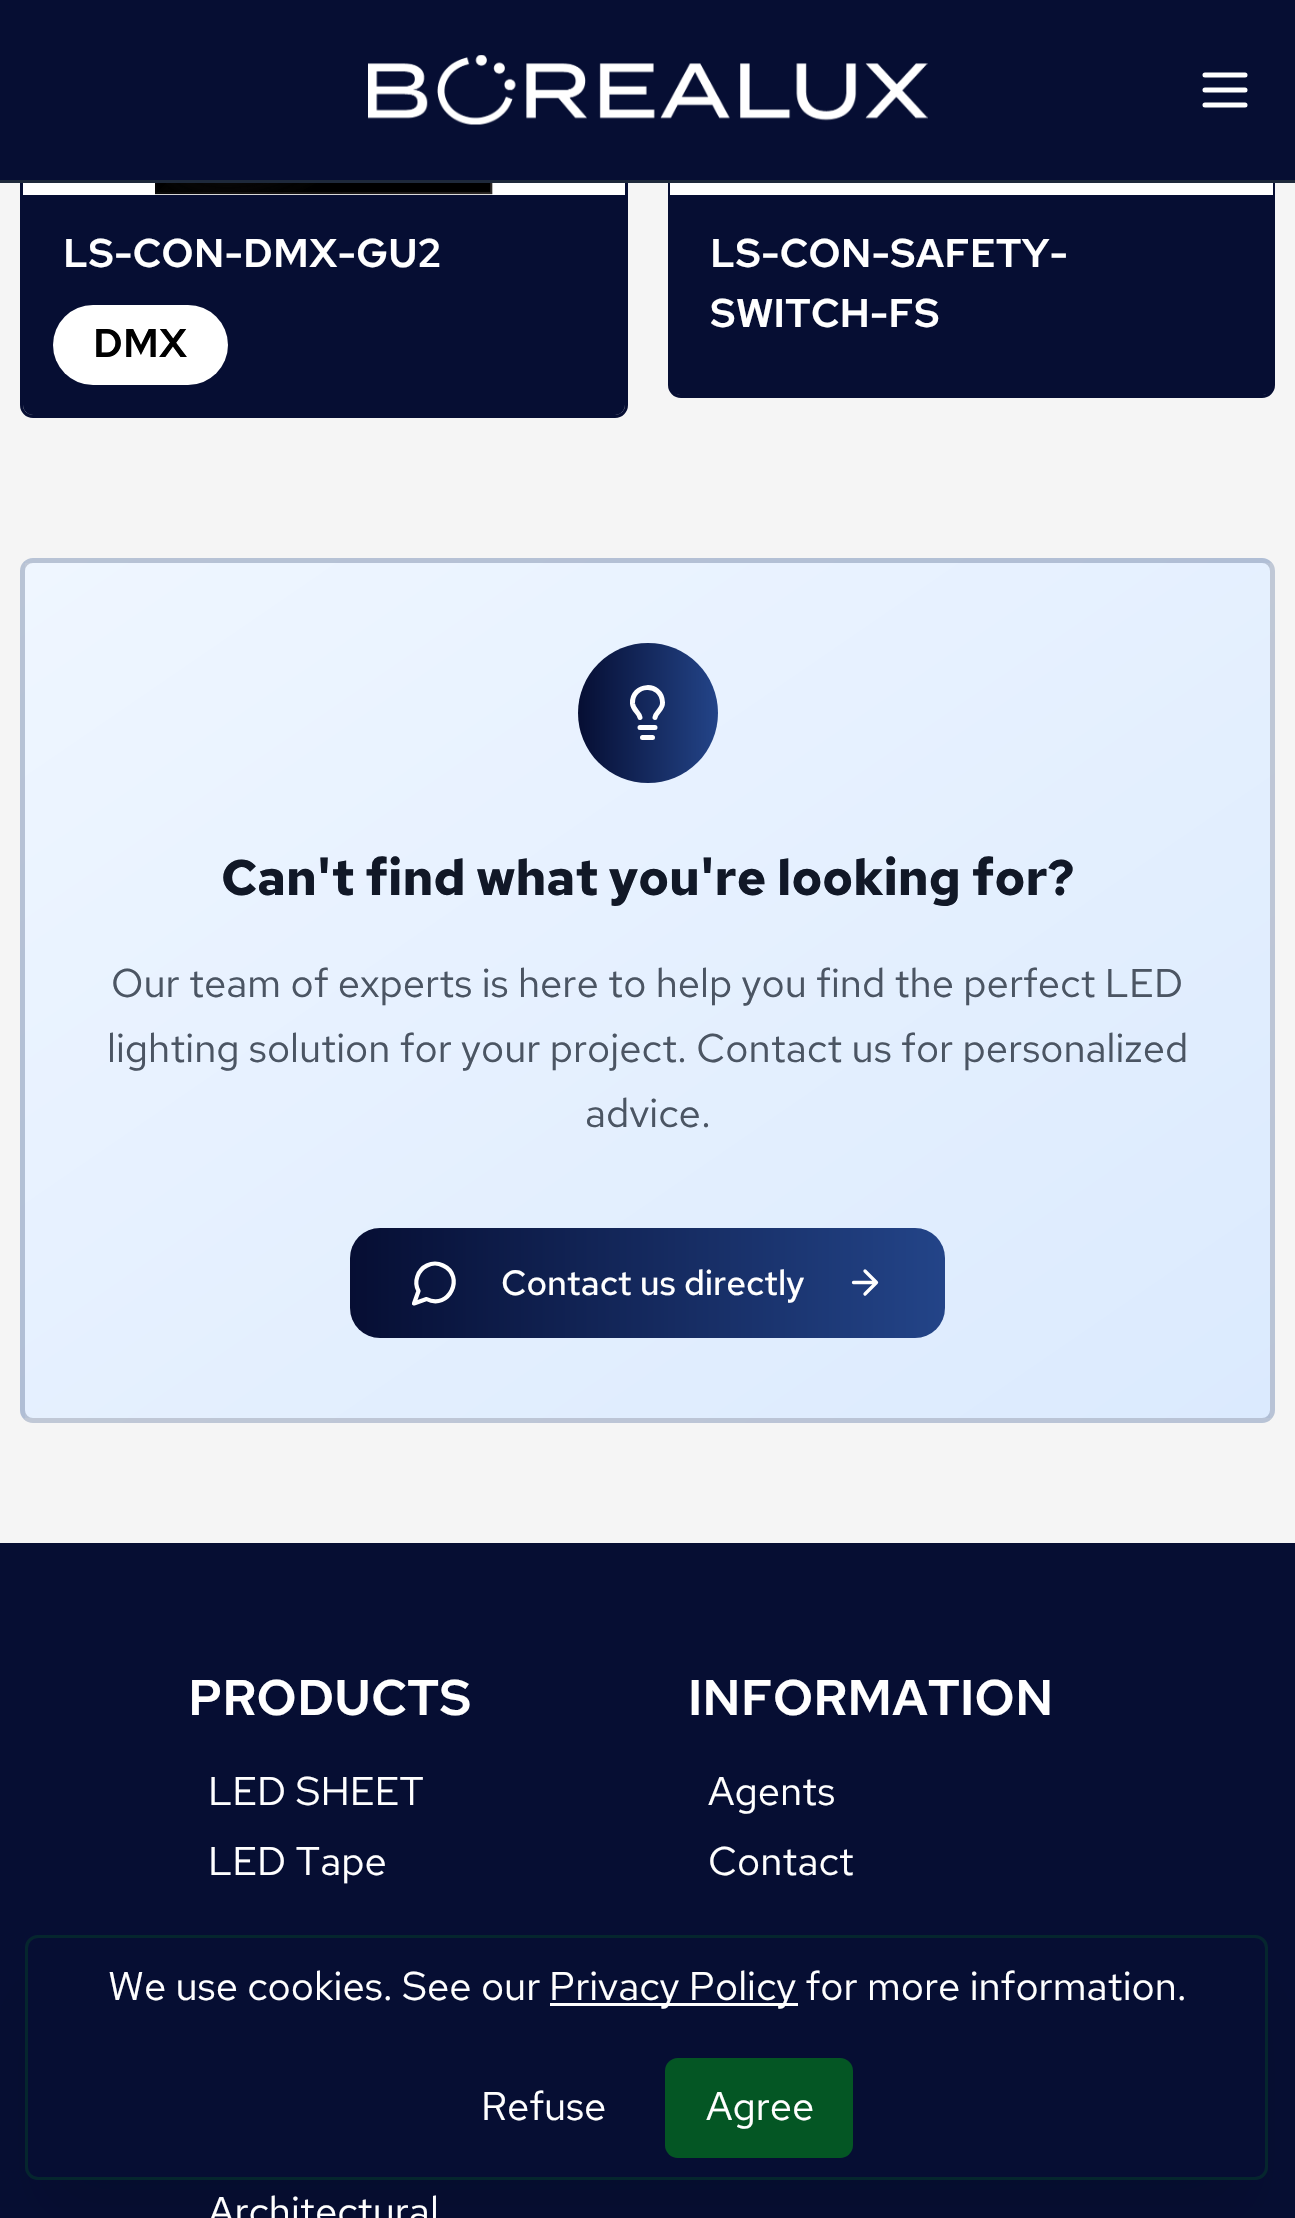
void draw(SkCanvas* canvas) {
  SkPaint paint;
  paint.setAntiAlias(true);
  auto face = [&](const char* family, int weight, float size, bool italic = false) {
    SkFontStyle style(weight, SkFontStyle::kNormal_Width,
      italic ? SkFontStyle::kItalic_Slant : SkFontStyle::kUpright_Slant);
    SkFont result(fontMgr->matchFamilyStyle(family, style), size);
    result.setSubpixel(true);
    return result;
  };
  auto paste = [&](const char* path, float x, float y, float w, float h) {
    auto image = SkImages::DeferredFromEncodedData(SkData::MakeFromFileName(path));
    canvas->drawImageRect(image, SkRect::MakeXYWH(x, y, w, h), SkSamplingOptions());
  };
  auto shape = [&](const char* data, bool evenOdd = false) {
    SkPath result = *SkParsePath::FromSVGString(data);
    if (evenOdd) result.setFillType(SkPathFillType::kEvenOdd);
    return result;
  };
  canvas->clear(0xff060e33);
  paint.setColor(0xfff5f5f5);
  canvas->drawRect(SkRect::MakeXYWH(0, 183, 1295, 1360), paint);
  paint.setStroke(true);
  paint.setStrokeWidth(3);
  paint.setColor(0xff060e33);
  canvas->drawRoundRect(SkRect::MakeXYWH(21.5f, -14.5f, 605, 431), 11.5f, 11.5f, paint);
  canvas->drawRoundRect(SkRect::MakeXYWH(669.5f, -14.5f, 604, 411), 11.5f, 11.5f, paint);
  paint.setStroke(false);
  paint.setColor(0xff1e293b);
  canvas->drawRect(SkRect::MakeXYWH(0, 180, 1295, 3), paint);
  paste("img/1.png", 368, 55, 560, 70);
  paint.setStroke(true);
  paint.setStrokeWidth(5);
  paint.setStrokeCap(SkPaint::kRound_Cap);
  paint.setStrokeJoin(SkPaint::kRound_Join);
  paint.setColor(0xffffffff);
  canvas->drawPath(shape("M1205 90H1245M1205 75H1245M1205 105H1245"), paint);
  paint.setStroke(false);
  canvas->drawRect(SkRect::MakeXYWH(23, 183, 602, 12), paint);
  paste("img/2.png", 155, 183, 338, 12);
  paint.setColor(0xff060e33);
  canvas->drawPath(shape("M23 195H625V405C625 410.5 620.5 415 615 415H33C27.5 415 23 410.5 23 405Z"), paint);
  paint.setColor(0xffffffff);
  canvas->drawRoundRect(SkRect::MakeXYWH(53, 305, 175, 80), 40, 40, paint);
  canvas->drawRect(SkRect::MakeXYWH(670, 183, 603, 12), paint);
  paint.setColor(0xff060e33);
  canvas->drawPath(shape("M670 195H1273V385C1273 390.5 1268.5 395 1263 395H680C674.5 395 670 390.5 670 385Z"), paint);
  canvas->save();
  canvas->clipPath(shape("M33 558H1262C1269 558 1275 564 1275 571V1410C1275 1417 1269 1423 1262 1423H33C26 1423 20 1417 20 1410V571C20 564 26 558 33 558Z"), true);
  {
    const SkColor colors[] = {0xffeff6ff, 0xffdbeafe};
    const float stops[] = {0, 1};
    const SkPoint ends[] = {{-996, -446}, {-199, 716}};
    paint.setShader(SkGradientShader::MakeLinear(ends, colors, stops, 2, SkTileMode::kClamp));
    paint.setAlpha(255);
  }
  canvas->drawRect(SkRect::MakeXYWH(20, 561, 5, 2), paint);
  {
    const SkColor colors[] = {0xffeff6ff, 0xffdbeafe};
    const float stops[] = {0, 1};
    const SkPoint ends[] = {{249, -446}, {1046, 716}};
    paint.setShader(SkGradientShader::MakeLinear(ends, colors, stops, 2, SkTileMode::kClamp));
    paint.setAlpha(255);
  }
  canvas->drawRect(SkRect::MakeXYWH(25, 558, 1245, 5), paint);
  {
    const SkColor colors[] = {0xffeff6ff, 0xffdbeafe};
    const float stops[] = {0, 1};
    const SkPoint ends[] = {{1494, -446}, {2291, 716}};
    paint.setShader(SkGradientShader::MakeLinear(ends, colors, stops, 2, SkTileMode::kClamp));
    paint.setAlpha(255);
  }
  canvas->drawRect(SkRect::MakeXYWH(1270, 561, 5, 2), paint);
  {
    const SkColor colors[] = {0xffeff6ff, 0xffdbeafe};
    const float stops[] = {0, 1};
    const SkPoint ends[] = {{-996, 409}, {-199, 1571}};
    paint.setShader(SkGradientShader::MakeLinear(ends, colors, stops, 2, SkTileMode::kClamp));
    paint.setAlpha(255);
  }
  canvas->drawRect(SkRect::MakeXYWH(20, 563, 5, 855), paint);
  canvas->restore();
  {
    const SkColor colors[] = {0xffeff6ff, 0xffdbeafe};
    const float stops[] = {0, 1};
    const SkPoint ends[] = {{249, 409}, {1046, 1571}};
    paint.setShader(SkGradientShader::MakeLinear(ends, colors, stops, 2, SkTileMode::kClamp));
    paint.setAlpha(255);
  }
  canvas->drawRect(SkRect::MakeXYWH(25, 563, 1245, 855), paint);
  canvas->save();
  canvas->clipPath(shape("M33 558H1262C1269 558 1275 564 1275 571V1410C1275 1417 1269 1423 1262 1423H33C26 1423 20 1417 20 1410V571C20 564 26 558 33 558Z"), true);
  {
    const SkColor colors[] = {0xffeff6ff, 0xffdbeafe};
    const float stops[] = {0, 1};
    const SkPoint ends[] = {{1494, 409}, {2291, 1571}};
    paint.setShader(SkGradientShader::MakeLinear(ends, colors, stops, 2, SkTileMode::kClamp));
    paint.setAlpha(255);
  }
  canvas->drawRect(SkRect::MakeXYWH(1270, 563, 5, 855), paint);
  {
    const SkColor colors[] = {0xffeff6ff, 0xffdbeafe};
    const float stops[] = {0, 1};
    const SkPoint ends[] = {{-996, 1264}, {-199, 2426}};
    paint.setShader(SkGradientShader::MakeLinear(ends, colors, stops, 2, SkTileMode::kClamp));
    paint.setAlpha(255);
  }
  canvas->drawRect(SkRect::MakeXYWH(20, 1418, 5, 2), paint);
  {
    const SkColor colors[] = {0xffeff6ff, 0xffdbeafe};
    const float stops[] = {0, 1};
    const SkPoint ends[] = {{249, 1264}, {1046, 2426}};
    paint.setShader(SkGradientShader::MakeLinear(ends, colors, stops, 2, SkTileMode::kClamp));
    paint.setAlpha(255);
  }
  canvas->drawRect(SkRect::MakeXYWH(25, 1418, 1245, 5), paint);
  {
    const SkColor colors[] = {0xffeff6ff, 0xffdbeafe};
    const float stops[] = {0, 1};
    const SkPoint ends[] = {{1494, 1264}, {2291, 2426}};
    paint.setShader(SkGradientShader::MakeLinear(ends, colors, stops, 2, SkTileMode::kClamp));
    paint.setAlpha(255);
  }
  canvas->drawRect(SkRect::MakeXYWH(1270, 1418, 5, 2), paint);
  canvas->restore();
  paint.setStroke(true);
  paint.setStrokeCap(SkPaint::kButt_Cap);
  paint.setStrokeJoin(SkPaint::kMiter_Join);
  paint.setShader(nullptr);
  paint.setColor(0x33060e33);
  canvas->drawRoundRect(SkRect::MakeXYWH(22.5f, 560.5f, 1250, 860), 10.5f, 10.5f, paint);
  paint.setStroke(false);
  {
    const SkColor colors[] = {0xff060e33, 0xff234488};
    const float stops[] = {0, 1};
    const SkPoint ends[] = {{578, 713}, {718, 713}};
    paint.setShader(SkGradientShader::MakeLinear(ends, colors, stops, 2, SkTileMode::kClamp));
    paint.setAlpha(255);
  }
  canvas->drawCircle(648, 713, 70, paint);
  paint.setStroke(true);
  paint.setStrokeCap(SkPaint::kRound_Cap);
  paint.setStrokeJoin(SkPaint::kRound_Join);
  paint.setShader(nullptr);
  paint.setColor(0xffffffff);
  canvas->drawPath(shape("M655 717.5C656 711.5 663 709.5 662.5 702.5C661.5 681 631.5 684 632.5 703.5C633 710 639 712 640 717.5M640 727.5H655M642.5 737.5H652.5"), paint);
  paint.setStroke(false);
  {
    const SkColor colors[] = {0xff060e33, 0xff234488};
    const float stops[] = {0, 1};
    const SkPoint ends[] = {{350, 1283}, {945, 1283}};
    paint.setShader(SkGradientShader::MakeLinear(ends, colors, stops, 2, SkTileMode::kClamp));
    paint.setAlpha(255);
  }
  canvas->drawRoundRect(SkRect::MakeXYWH(350, 1228, 595, 110), 30, 30, paint);
  paint.setStroke(true);
  paint.setStrokeWidth(4.2f);
  paint.setShader(nullptr);
  paint.setColor(0xffffffff);
  canvas->drawPath(shape("M426.5 1299C449 1310.5 465.5 1276 443 1265.5C438 1263 432 1263 427 1265.5C417.5 1270 413.5 1282 418.5 1291L414 1303.5Z"), paint);
  paint.setStrokeWidth(3.3f);
  canvas->drawPath(shape("M853.5 1282.5H876.5M865 1271L876.5 1282.5L865 1294"), paint);
  paint.setStroke(false);
  paint.setColor(0x1a000000);
  paint.setMaskFilter(SkMaskFilter::MakeBlur(kNormal_SkBlurStyle, 31));
  canvas->drawRect(SkRect::MakeXYWH(38, 1998, 1217, 220), paint);
  paint.setMaskFilter(nullptr);
  paint.setColor(0xff060e33);
  canvas->drawRoundRect(SkRect::MakeXYWH(26.5f, 1936.5f, 1240, 242), 11.5f, 11.5f, paint);
  paint.setStroke(true);
  paint.setStrokeWidth(3);
  paint.setStrokeCap(SkPaint::kButt_Cap);
  paint.setStrokeJoin(SkPaint::kMiter_Join);
  paint.setColor(0xff05262e);
  canvas->drawRoundRect(SkRect::MakeXYWH(26.5f, 1936.5f, 1240, 242), 11.5f, 11.5f, paint);
  paint.setStroke(false);
  paint.setColor(0xffffffff);
  canvas->drawRect(SkRect::MakeXYWH(550, 2003, 248, 3), paint);
  paint.setColor(0xff045624);
  canvas->drawRoundRect(SkRect::MakeXYWH(665, 2058, 188, 100), 13, 13, paint);
  auto f0 = face("Red Hat Text", 600, 40);
  paint.setColor(0xffffffff);
  canvas->drawString("LS-CON-DMX-GU2", 63, 267, f0, paint);
  paint.setColor(0xff000000);
  canvas->drawString("DMX", 93, 357, f0, paint);
  paint.setColor(0xffffffff);
  canvas->drawString("LS-CON-SAFETY-", 710, 267, f0, paint);
  canvas->drawString("SWITCH-FS", 710, 327, f0, paint);
  auto f1 = face("Red Hat Text", 700, 50);
  paint.setColor(0xff111827);
  canvas->drawString("Can't find what you're looking for?", 221, 895, f1, paint);
  auto f2 = face("Red Hat Text", 400, 40);
  paint.setColor(0xff4b5563);
  {
    const struct { const char* s; float x, y; } items[] = {
      {"Our team of experts is here to help you find the perfect LED", 111, 997},
      {"lighting solution for your project. Contact us for personalized", 107, 1062},
      {"advice.", 585, 1127},
    };
    for (auto [s, x, y] : items) {
      canvas->drawString(s, x, y, f2, paint);
    }
  }
  auto f3 = face("Red Hat Text", 500, 35);
  paint.setColor(0xffffffff);
  canvas->drawString("Contact us directly", 501, 1295, f3, paint);
  auto f4 = face("Red Hat Text", 600, 50);
  canvas->drawString("PRODUCTS", 188, 1715, f4, paint);
  {
    const struct { const char* s; float x, y; } items[] = {
      {"LED SHEET", 208, 1805},
      {"LED Tape", 208, 1875},
      {"Architectural", 208, 2225},
    };
    for (auto [s, x, y] : items) {
      canvas->drawString(s, x, y, f2, paint);
    }
  }
  canvas->drawString("INFORMATION", 688, 1715, f4, paint);
  {
    const struct { const char* s; float x, y; } items[] = {
      {"Agents", 708, 1805},
      {"Contact", 708, 1875},
      {"We use cookies. See our", 108, 2000},
      {"Privacy Policy for more information.", 549, 2000},
      {"Refuse", 481, 2120},
      {"Agree", 706, 2120},
    };
    for (auto [s, x, y] : items) {
      canvas->drawString(s, x, y, f2, paint);
    }
  }
}
